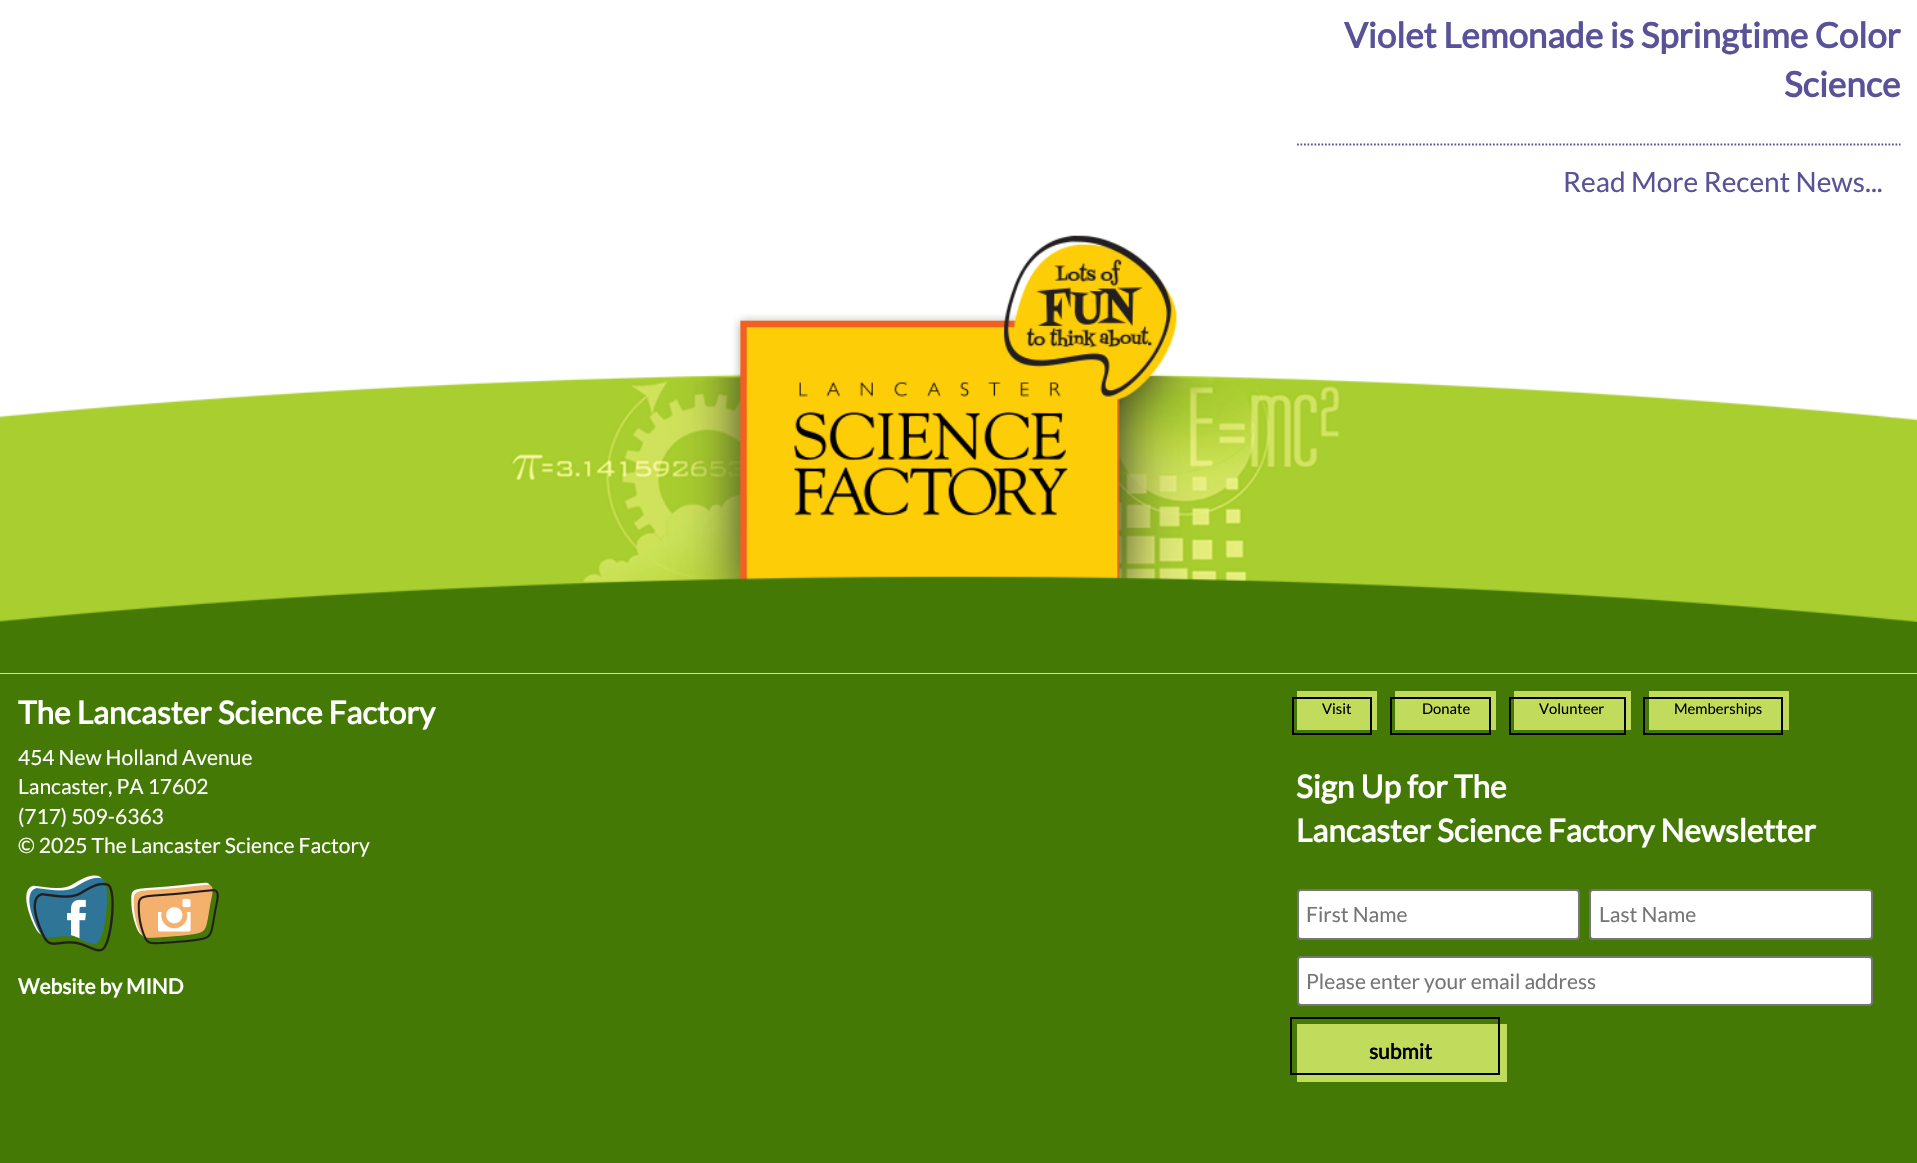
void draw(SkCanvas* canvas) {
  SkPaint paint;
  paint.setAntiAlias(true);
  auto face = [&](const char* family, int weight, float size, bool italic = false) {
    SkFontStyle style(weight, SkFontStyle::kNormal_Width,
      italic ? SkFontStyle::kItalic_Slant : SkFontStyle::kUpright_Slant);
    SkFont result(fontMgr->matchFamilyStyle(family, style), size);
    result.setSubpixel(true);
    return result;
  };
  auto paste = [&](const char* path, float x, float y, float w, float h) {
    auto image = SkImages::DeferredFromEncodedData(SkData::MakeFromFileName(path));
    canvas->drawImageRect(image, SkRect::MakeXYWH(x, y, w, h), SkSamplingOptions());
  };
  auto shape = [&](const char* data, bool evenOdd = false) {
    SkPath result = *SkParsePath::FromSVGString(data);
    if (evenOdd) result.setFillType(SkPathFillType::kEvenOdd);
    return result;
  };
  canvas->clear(0xffffffff);
  paint.setStroke(true);
  paint.setStrokeWidth(1.8f);
  paint.setColor(0xff595298);
  paint.setPathEffect(SkDashPathEffect::Make({{1.75f, 1.75f}}, 0));
  canvas->drawPath(shape("M1297 144.5H1900.5"), paint);
  paint.setPathEffect(nullptr);
  paste("img/1.png", 0, 235, 1917, 439);
  paint.setStroke(false);
  paint.setColor(0xff437904);
  canvas->drawRect(SkRect::MakeXYWH(0, 674, 1917, 489), paint);
  paste("img/2.png", 26, 875, 88, 77);
  paste("img/3.png", 131, 882, 88, 63);
  paint.setColor(0xffc1db5d);
  canvas->drawRect(SkRect::MakeXYWH(1297, 691, 80, 39), paint);
  paint.setStroke(true);
  paint.setStrokeWidth(2);
  paint.setColor(0xff000000);
  canvas->drawRect(SkRect::MakeXYWH(1293, 698, 78, 36), paint);
  paint.setStroke(false);
  paint.setColor(0xffc1db5d);
  canvas->drawRect(SkRect::MakeXYWH(1395, 691, 101, 39), paint);
  paint.setStroke(true);
  paint.setColor(0xff000000);
  canvas->drawRect(SkRect::MakeXYWH(1391, 698, 99, 36), paint);
  paint.setStroke(false);
  paint.setColor(0xffc1db5d);
  canvas->drawRect(SkRect::MakeXYWH(1514, 691, 117, 39), paint);
  paint.setStroke(true);
  paint.setColor(0xff000000);
  canvas->drawRect(SkRect::MakeXYWH(1510, 698, 115, 36), paint);
  paint.setStroke(false);
  paint.setColor(0xffc1db5d);
  canvas->drawRect(SkRect::MakeXYWH(1649, 691, 140, 39), paint);
  paint.setStroke(true);
  paint.setColor(0xff000000);
  canvas->drawRect(SkRect::MakeXYWH(1644, 698, 138, 36), paint);
  paint.setStroke(false);
  paint.setColor(0xffffffff);
  canvas->drawRoundRect(SkRect::MakeXYWH(1298, 890, 281, 49), 3, 3, paint);
  paint.setStroke(true);
  paint.setColor(0xff767676);
  canvas->drawRoundRect(SkRect::MakeXYWH(1298, 890, 281, 49), 3, 3, paint);
  paint.setStroke(false);
  paint.setColor(0xffffffff);
  canvas->drawRoundRect(SkRect::MakeXYWH(1590, 890, 282, 49), 3, 3, paint);
  paint.setStroke(true);
  paint.setColor(0xff767676);
  canvas->drawRoundRect(SkRect::MakeXYWH(1590, 890, 282, 49), 3, 3, paint);
  paint.setStroke(false);
  paint.setColor(0xffffffff);
  canvas->drawRoundRect(SkRect::MakeXYWH(1298, 957, 574, 48), 3, 3, paint);
  paint.setStroke(true);
  paint.setColor(0xff767676);
  canvas->drawRoundRect(SkRect::MakeXYWH(1298, 957, 574, 48), 3, 3, paint);
  paint.setStroke(false);
  paint.setColor(0xffc1db5d);
  canvas->drawRect(SkRect::MakeXYWH(1297, 1024, 210, 58), paint);
  paint.setStroke(true);
  paint.setColor(0xff000000);
  canvas->drawRect(SkRect::MakeXYWH(1291, 1018, 208, 56), paint);
  auto f0 = face("Lato", 700, 35);
  paint.setStroke(false);
  paint.setColor(0xff595298);
  canvas->drawString("Violet Lemonade is Springtime Color", 1344, 48, f0, paint);
  canvas->drawString("Science", 1784, 97, f0, paint);
  auto f1 = face("Lato", 400, 28);
  canvas->drawString("Read More Recent News...", 1563, 192, f1, paint);
  auto f2 = face("Lato", 700, 31.5f);
  paint.setColor(0xffffffff);
  canvas->drawString("The Lancaster Science Factory", 18, 724, f2, paint);
  auto f3 = face("Lato", 400, 21);
  {
    const struct { const char* s; float x, y; } items[] = {
      {"454 New Holland Avenue", 18, 765},
      {"Lancaster, PA 17602", 18, 794},
      {"(717) 509-6363", 18, 824},
      {"© 2025 The Lancaster Science Factory", 18, 853},
    };
    for (auto [s, x, y] : items) {
      canvas->drawString(s, x, y, f3, paint);
    }
  }
  auto f4 = face("Lato", 700, 21);
  canvas->drawString("Website by MIND", 18, 994, f4, paint);
  auto f5 = face("Lato", 400, 14.75f);
  paint.setColor(0xff000000);
  {
    const struct { const char* s; float x, y; } items[] = {
      {"Visit", 1322, 714},
      {"Donate", 1422, 714},
      {"Volunteer", 1539, 714},
      {"Memberships", 1674, 714},
    };
    for (auto [s, x, y] : items) {
      canvas->drawString(s, x, y, f5, paint);
    }
  }
  paint.setColor(0xffffffff);
  canvas->drawString("Sign Up for The", 1296, 798, f2, paint);
  canvas->drawString("Lancaster Science Factory Newsletter", 1296, 842, f2, paint);
  paint.setColor(0xff757575);
  {
    const struct { const char* s; float x, y; } items[] = {
      {"First Name", 1306, 922},
      {"Last Name", 1599, 922},
      {"Please enter your email address", 1306, 989},
    };
    for (auto [s, x, y] : items) {
      canvas->drawString(s, x, y, f3, paint);
    }
  }
  paint.setColor(0xff000000);
  canvas->drawString("submit", 1369, 1059, f4, paint);
}
